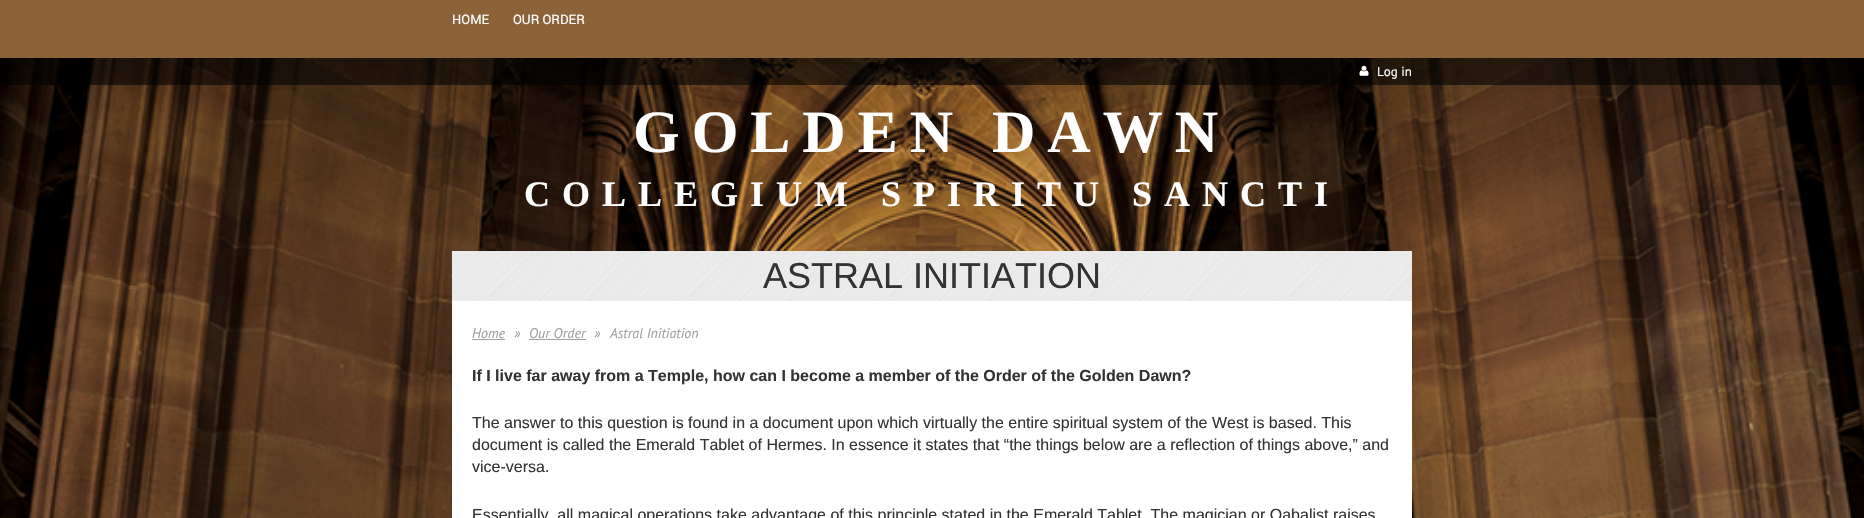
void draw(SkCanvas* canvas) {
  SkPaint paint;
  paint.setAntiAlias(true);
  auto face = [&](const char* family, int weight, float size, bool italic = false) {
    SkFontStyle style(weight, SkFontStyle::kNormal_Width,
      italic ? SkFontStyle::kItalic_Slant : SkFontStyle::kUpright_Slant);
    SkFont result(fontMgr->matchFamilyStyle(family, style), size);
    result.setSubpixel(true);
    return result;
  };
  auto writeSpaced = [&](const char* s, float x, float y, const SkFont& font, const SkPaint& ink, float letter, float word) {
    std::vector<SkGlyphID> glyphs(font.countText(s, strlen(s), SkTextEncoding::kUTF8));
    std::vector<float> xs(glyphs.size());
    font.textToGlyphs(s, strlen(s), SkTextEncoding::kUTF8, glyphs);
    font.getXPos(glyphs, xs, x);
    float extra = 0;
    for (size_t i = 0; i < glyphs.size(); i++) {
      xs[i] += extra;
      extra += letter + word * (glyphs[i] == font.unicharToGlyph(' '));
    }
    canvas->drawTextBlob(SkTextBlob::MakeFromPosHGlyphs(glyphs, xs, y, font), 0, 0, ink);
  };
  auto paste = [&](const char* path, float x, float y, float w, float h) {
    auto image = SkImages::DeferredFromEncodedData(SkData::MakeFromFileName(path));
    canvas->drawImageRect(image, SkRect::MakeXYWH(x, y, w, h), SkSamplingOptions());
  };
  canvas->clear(0xffffffff);
  paste("img/1.png", 0, 58, 1864, 460);
  paint.setColor(0xff8c6239);
  canvas->drawRect(SkRect::MakeXYWH(0, 0, 1864, 58), paint);
  paint.setColor(0x99000000);
  canvas->drawRect(SkRect::MakeXYWH(0, 58, 1864, 27), paint);
  paste("img/2.png", 1359, 65, 10, 11);
  paste("img/3.png", 452, 251, 960, 50);
  {
    const struct { float x, y, w, h; SkColor color; } items[] = {
      {452, 301, 960, 217, 0xffffffff},
      {472, 339, 33, 1, 0xff9da1a3},
      {529, 339, 57, 1, 0xff9da1a3},
    };
    for (auto [x, y, w, h, color] : items) {
      paint.setColor(color);
      canvas->drawRect(SkRect::MakeXYWH(x, y, w, h), paint);
    }
  }
  auto f0 = face("Roboto", 400, 13);
  paint.setColor(0xffffffff);
  canvas->drawString("HOME", 452, 24, f0, paint);
  canvas->drawString("OUR ORDER", 513, 24, f0, paint);
  auto f1 = face("PT Sans", 400, 13);
  canvas->drawString("Log in", 1377, 76, f1, paint);
  auto f2 = face("Liberation Serif", 700, 60);
  writeSpaced("GOLDEN DAWN", 633, 152, f2, paint, 12, 0);
  auto f3 = face("Liberation Serif", 700, 36);
  writeSpaced("COLLEGIUM SPIRITU SANCTI", 524, 206, f3, paint, 12, 0);
  auto f4 = face("Liberation Sans", 400, 36);
  paint.setColor(0xff333333);
  canvas->drawString("ASTRAL INITIATION", 763, 288, f4, paint);
  auto f5 = face("PT Sans", 400, 14, true);
  paint.setColor(0xff9da1a3);
  {
    const struct { const char* s; float x, y; } items[] = {
      {"Home", 472, 338},
      {"»", 514, 338},
      {"Our Order", 529, 338},
      {"»", 594, 338},
      {"Astral Initiation", 610, 338},
    };
    for (auto [s, x, y] : items) {
      canvas->drawString(s, x, y, f5, paint);
    }
  }
  auto f6 = face("Liberation Sans", 700, 16);
  paint.setColor(0xff333333);
  canvas->drawString("If I live far away from a Temple, how can I become a member of the Order of the Golden Dawn?", 472, 381, f6, paint);
  auto f7 = face("Liberation Sans", 400, 16);
  {
    const struct { const char* s; float x, y; } items[] = {
      {"The answer to this question is found in a document upon which virtually the entire spiritual system of the West is based. This", 472, 428},
      {"document is called the Emerald Tablet of Hermes. In essence it states that “the things below are a reflection of things above,” and", 472, 450},
      {"vice-versa.", 472, 472},
      {"Essentially, all magical operations take advantage of this principle stated in the Emerald Tablet. The magician or Qabalist raises", 472, 520},
    };
    for (auto [s, x, y] : items) {
      canvas->drawString(s, x, y, f7, paint);
    }
  }
}
